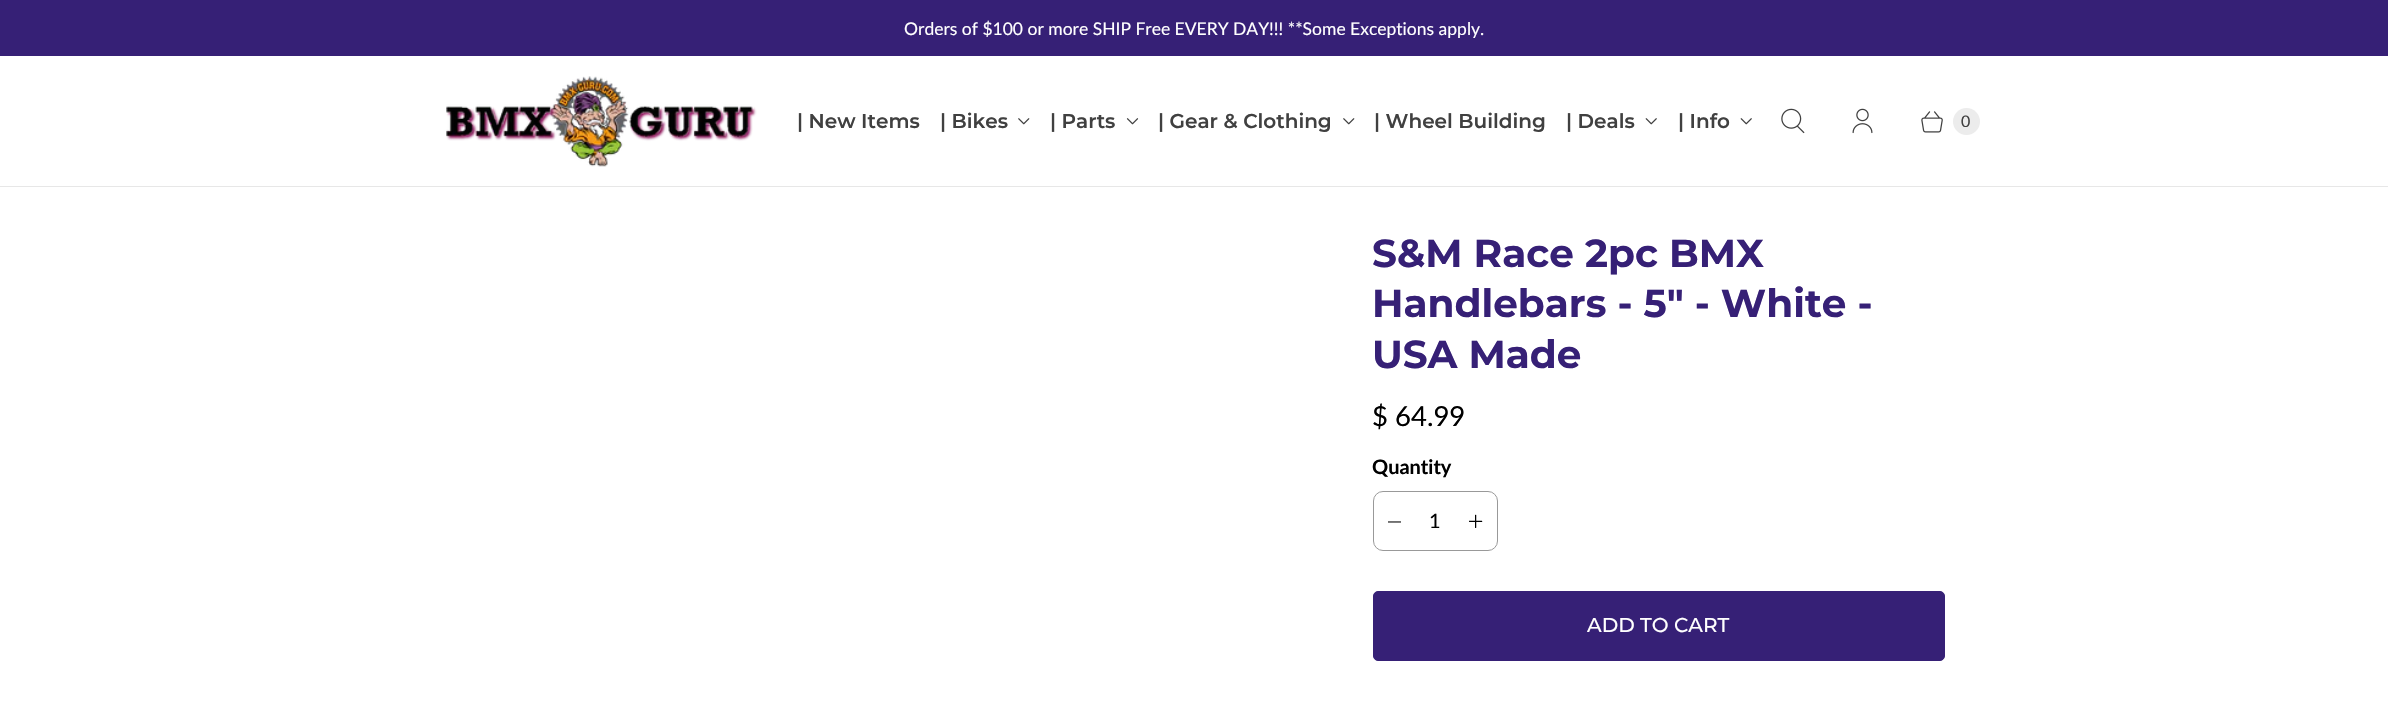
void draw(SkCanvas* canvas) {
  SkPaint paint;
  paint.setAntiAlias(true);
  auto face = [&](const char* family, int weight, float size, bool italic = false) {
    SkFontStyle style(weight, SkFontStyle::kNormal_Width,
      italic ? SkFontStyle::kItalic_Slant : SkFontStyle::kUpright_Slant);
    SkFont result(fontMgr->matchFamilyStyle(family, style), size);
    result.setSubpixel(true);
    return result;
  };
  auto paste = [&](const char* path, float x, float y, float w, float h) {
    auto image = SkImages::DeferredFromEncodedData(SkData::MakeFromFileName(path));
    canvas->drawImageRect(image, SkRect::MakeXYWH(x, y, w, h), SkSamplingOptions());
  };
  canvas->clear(0xffffffff);
  paint.setColor(0xff362076);
  canvas->drawRect(SkRect::MakeXYWH(0, 0, 2388, 56), paint);
  paint.setColor(0xffe7e7e7);
  canvas->drawRect(SkRect::MakeXYWH(0, 186, 2388, 1), paint);
  paste("img/1.png", 446, 76, 311, 91);
  paste("img/2.png", 1018, 118, 12, 7);
  paste("img/3.png", 1126, 118, 13, 7);
  paste("img/2.png", 1343, 118, 12, 7);
  paste("img/4.png", 1645, 118, 12, 7);
  paste("img/4.png", 1740, 118, 12, 7);
  paste("img/5.png", 1781, 108, 24, 26);
  paste("img/6.png", 1852, 108, 21, 26);
  paste("img/7.png", 1921, 111, 22, 22);
  paint.setColor(0xffececec);
  canvas->drawCircle(1966.5f, 121.5f, 13.5f, paint);
  paint.setStroke(true);
  paint.setStrokeWidth(1);
  paint.setColor(0xff999999);
  canvas->drawRoundRect(SkRect::MakeXYWH(1373.5f, 491.5f, 124, 59), 9.5f, 9.5f, paint);
  paste("img/8.png", 1388, 521, 13, 2);
  paste("img/9.png", 1469, 514, 14, 14);
  paint.setStroke(false);
  paint.setColor(0xff362076);
  canvas->drawRoundRect(SkRect::MakeXYWH(1373.5f, 591.5f, 571, 69), 4.5f, 4.5f, paint);
  paint.setStroke(true);
  canvas->drawRoundRect(SkRect::MakeXYWH(1373.5f, 591.5f, 571, 69), 4.5f, 4.5f, paint);
  auto f0 = face("Lato", 400, 17.5f);
  paint.setStroke(false);
  paint.setColor(0xffffffff);
  canvas->drawString("Orders of $100 or more SHIP Free EVERY DAY!!! **Some Exceptions apply.", 904, 35, f0, paint);
  auto f1 = face("Montserrat", 600, 20);
  paint.setColor(0xff404040);
  {
    const struct { const char* s; float x, y; } items[] = {
      {"| New Items", 797, 128},
      {"| Bikes", 940, 128},
      {"| Parts", 1050, 128},
      {"| Gear & Clothing", 1158, 128},
      {"| Wheel Building", 1374, 128},
      {"| Deals", 1566, 128},
      {"| Info", 1678, 128},
    };
    for (auto [s, x, y] : items) {
      canvas->drawString(s, x, y, f1, paint);
    }
  }
  auto f2 = face("Lato", 400, 16);
  canvas->drawString("0", 1961, 127, f2, paint);
  auto f3 = face("Montserrat", 700, 39);
  paint.setColor(0xff362076);
  {
    const struct { const char* s; float x, y; } items[] = {
      {"S&M Race 2pc BMX", 1372, 267},
      {"Handlebars - 5\" - White -", 1372, 317},
      {"USA Made", 1372, 368},
    };
    for (auto [s, x, y] : items) {
      canvas->drawString(s, x, y, f3, paint);
    }
  }
  auto f4 = face("Lato", 400, 27.5f);
  paint.setColor(0xff000000);
  canvas->drawString("$ 64.99", 1372, 426, f4, paint);
  auto f5 = face("Lato", 700, 20);
  canvas->drawString("Quantity", 1372, 474, f5, paint);
  auto f6 = face("Lato", 400, 20);
  canvas->drawString("1", 1429, 528, f6, paint);
  auto f7 = face("Montserrat", 500, 20);
  paint.setColor(0xffffffff);
  canvas->drawString("ADD TO CART", 1587, 632, f7, paint);
}
